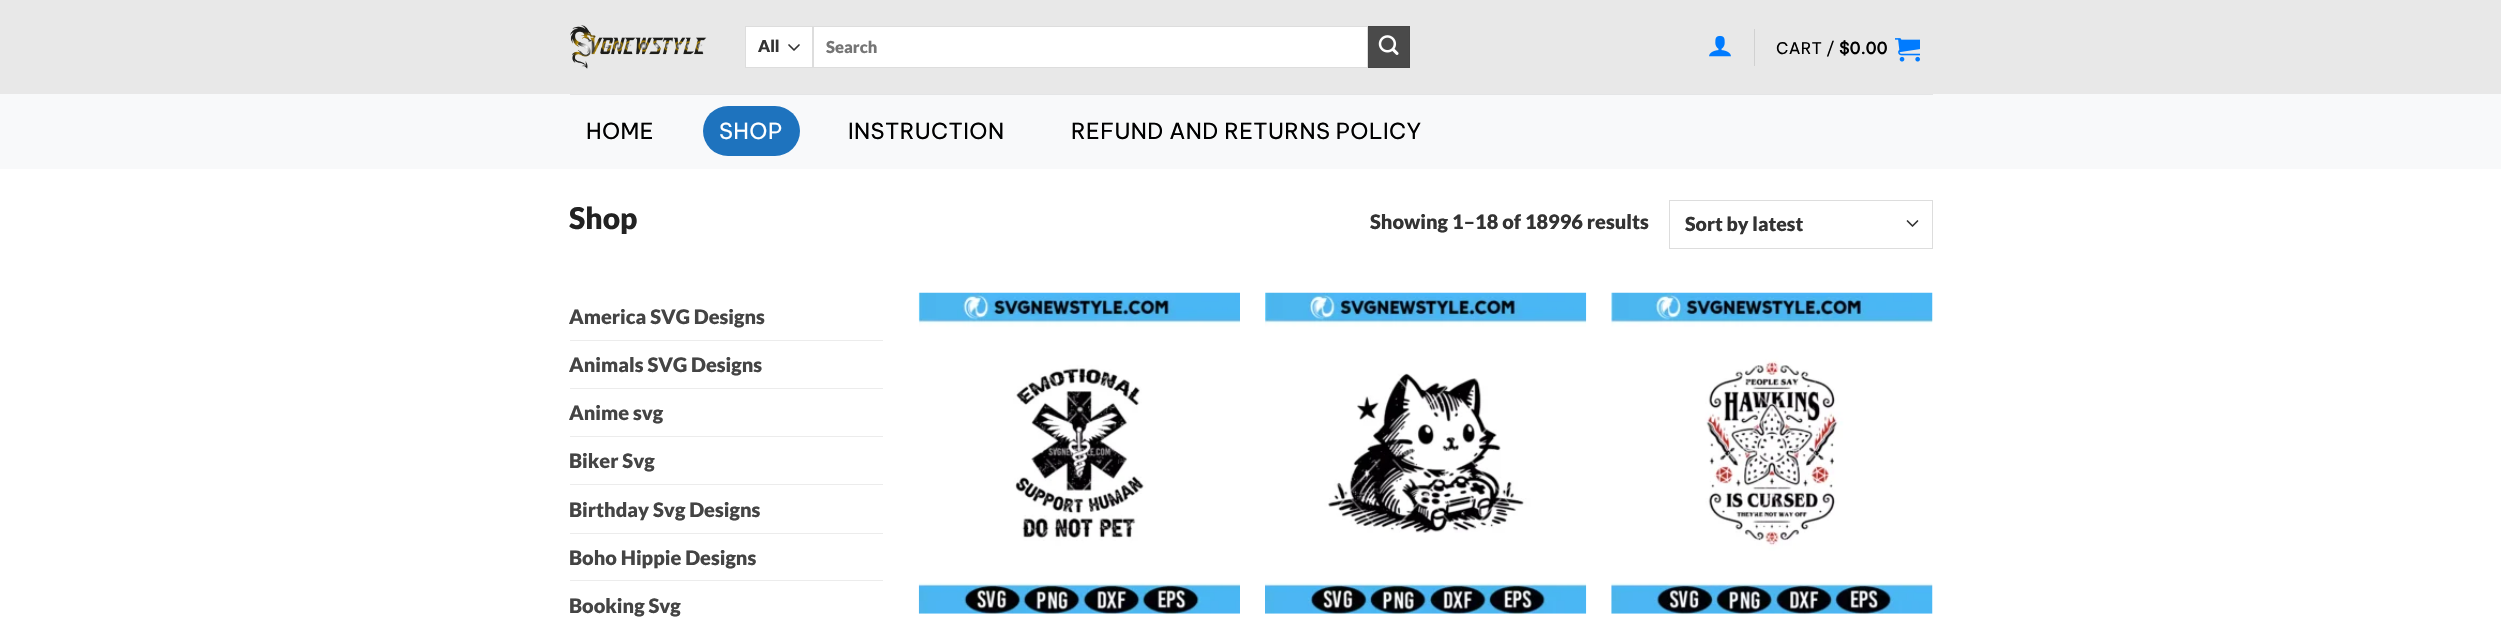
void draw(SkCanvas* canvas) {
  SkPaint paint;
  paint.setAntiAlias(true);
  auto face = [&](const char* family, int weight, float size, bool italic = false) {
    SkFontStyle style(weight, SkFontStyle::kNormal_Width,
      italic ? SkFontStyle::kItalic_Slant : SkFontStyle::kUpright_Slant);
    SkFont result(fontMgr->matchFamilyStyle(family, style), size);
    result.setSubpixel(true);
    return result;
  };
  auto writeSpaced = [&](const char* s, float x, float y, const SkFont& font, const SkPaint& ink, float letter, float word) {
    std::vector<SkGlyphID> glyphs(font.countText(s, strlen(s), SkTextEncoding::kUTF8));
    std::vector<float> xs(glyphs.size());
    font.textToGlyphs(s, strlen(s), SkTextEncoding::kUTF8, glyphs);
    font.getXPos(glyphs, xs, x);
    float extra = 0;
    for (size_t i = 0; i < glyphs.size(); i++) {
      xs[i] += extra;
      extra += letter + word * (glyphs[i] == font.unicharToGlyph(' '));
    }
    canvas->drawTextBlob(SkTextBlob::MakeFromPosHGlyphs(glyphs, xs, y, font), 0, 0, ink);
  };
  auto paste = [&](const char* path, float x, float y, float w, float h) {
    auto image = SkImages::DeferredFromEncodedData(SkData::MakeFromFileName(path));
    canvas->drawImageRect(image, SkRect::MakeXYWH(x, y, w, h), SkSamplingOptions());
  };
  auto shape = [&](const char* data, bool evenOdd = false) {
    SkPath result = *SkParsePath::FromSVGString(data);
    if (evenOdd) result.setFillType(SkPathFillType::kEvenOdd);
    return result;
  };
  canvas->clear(0xffffffff);
  paint.setColor(0xffe8e8e8);
  canvas->drawRect(SkRect::MakeXYWH(0, 0, 2501, 94), paint);
  paste("img/1.png", 570, 25, 137, 44);
  paint.setColor(0xffffffff);
  canvas->drawRect(SkRect::MakeXYWH(746, 27, 66, 40), paint);
  paint.setStroke(true);
  paint.setStrokeWidth(1.7f);
  paint.setStrokeCap(SkPaint::kRound_Cap);
  paint.setStrokeJoin(SkPaint::kRound_Join);
  paint.setColor(0xff333333);
  canvas->drawPath(shape("M789 45L794 50L799 45"), paint);
  paint.setStrokeWidth(1);
  paint.setStrokeCap(SkPaint::kButt_Cap);
  paint.setStrokeJoin(SkPaint::kMiter_Join);
  paint.setColor(0xffdddddd);
  canvas->drawRect(SkRect::MakeXYWH(745.5f, 26.5f, 67, 41), paint);
  paint.setStroke(false);
  paint.setColor(0xffffffff);
  canvas->drawRect(SkRect::MakeXYWH(813.5f, 26.5f, 554, 41), paint);
  paint.setStroke(true);
  paint.setColor(0xffdddddd);
  canvas->drawRect(SkRect::MakeXYWH(813.5f, 26.5f, 554, 41), paint);
  paint.setStroke(false);
  paint.setColor(0xff4a4a4a);
  canvas->drawRect(SkRect::MakeXYWH(1368.5f, 26.5f, 41, 41), paint);
  paint.setStroke(true);
  paint.setColor(0xff464646);
  canvas->drawRect(SkRect::MakeXYWH(1368.5f, 26.5f, 41, 41), paint);
  paste("img/2.png", 1378, 35, 21, 20);
  paste("img/3.png", 1709, 35, 22, 22);
  paint.setStroke(false);
  paint.setColor(0xffd1d1d1);
  canvas->drawRect(SkRect::MakeXYWH(1754, 29, 1, 37), paint);
  paste("img/4.png", 1895, 38, 25, 24);
  paint.setColor(0xfff8f9fa);
  canvas->drawRect(SkRect::MakeXYWH(0, 94, 2501, 75), paint);
  paint.setColor(0xffe4e5e6);
  canvas->drawRect(SkRect::MakeXYWH(570, 94, 1363, 1), paint);
  paint.setColor(0xff1e73be);
  canvas->drawRoundRect(SkRect::MakeXYWH(703, 106, 97, 50), 25, 25, paint);
  paint.setStroke(true);
  paint.setStrokeWidth(1.7f);
  paint.setStrokeCap(SkPaint::kRound_Cap);
  paint.setStrokeJoin(SkPaint::kRound_Join);
  paint.setColor(0xff333333);
  canvas->drawPath(shape("M1907.5 221L1912.5 226L1917.5 221"), paint);
  paint.setStrokeWidth(1);
  paint.setStrokeCap(SkPaint::kButt_Cap);
  paint.setStrokeJoin(SkPaint::kMiter_Join);
  paint.setColor(0xffdddddd);
  canvas->drawRect(SkRect::MakeXYWH(1669.5f, 200.5f, 263, 48), paint);
  paint.setStroke(false);
  {
    const struct { float x, y, w, h; SkColor color; } items[] = {
      {570, 340, 313, 1, 0xffececec},
      {570, 388, 313, 1, 0xffececec},
      {570, 436, 313, 1, 0xffececec},
      {570, 484, 313, 1, 0xffececec},
      {570, 533, 313, 1, 0xffececec},
      {570, 580, 313, 1, 0xffececec},
    };
    for (auto [x, y, w, h, color] : items) {
      paint.setColor(color);
      canvas->drawRect(SkRect::MakeXYWH(x, y, w, h), paint);
    }
  }
  paste("img/5.png", 918, 292, 322, 322);
  paste("img/6.png", 1265, 292, 322, 322);
  paste("img/7.png", 1611, 292, 322, 322);
  auto f0 = face("Lato", 900, 16.5f);
  paint.setColor(0xff333333);
  canvas->drawString("All", 758, 52, f0, paint);
  paint.setColor(0xff757575);
  canvas->drawString("Search", 826, 53, f0, paint);
  auto f1 = face("Be Vietnam Pro", 400, 16);
  paint.setColor(0xff000000);
  writeSpaced("CART /", 1776, 54, f1, paint, 0.25f, 0);
  auto f2 = face("Be Vietnam Pro", 700, 16);
  writeSpaced("$0.00", 1839, 54, f2, paint, 0.25f, 0);
  auto f3 = face("Be Vietnam Pro", 400, 22);
  writeSpaced("HOME", 586, 139, f3, paint, 0.4f, 0);
  paint.setColor(0xffffffff);
  writeSpaced("SHOP", 719, 139, f3, paint, 0.4f, 0);
  paint.setColor(0xff000000);
  writeSpaced("INSTRUCTION", 848, 139, f3, paint, 0.4f, 0);
  writeSpaced("REFUND AND RETURNS POLICY", 1071, 139, f3, paint, 0.4f, 0);
  auto f4 = face("Lato", 900, 30);
  paint.setColor(0xff222222);
  canvas->drawString("Shop", 569, 229, f4, paint);
  auto f5 = face("Lato", 900, 20);
  paint.setColor(0xff333333);
  canvas->drawString("Showing 1–18 of 18996 results", 1370, 229, f5, paint);
  auto f6 = face("Lato", 900, 19.5f);
  canvas->drawString("Sort by latest", 1685, 231, f6, paint);
  paint.setColor(0xff444444);
  {
    const struct { const char* s; float x, y; } items[] = {
      {"America SVG Designs", 569, 324},
      {"Animals SVG Designs", 569, 372},
      {"Anime svg", 569, 420},
      {"Biker Svg", 569, 468},
      {"Birthday Svg Designs", 569, 517},
      {"Boho Hippie Designs", 569, 565},
      {"Booking Svg", 569, 613},
    };
    for (auto [s, x, y] : items) {
      canvas->drawString(s, x, y, f5, paint);
    }
  }
}
